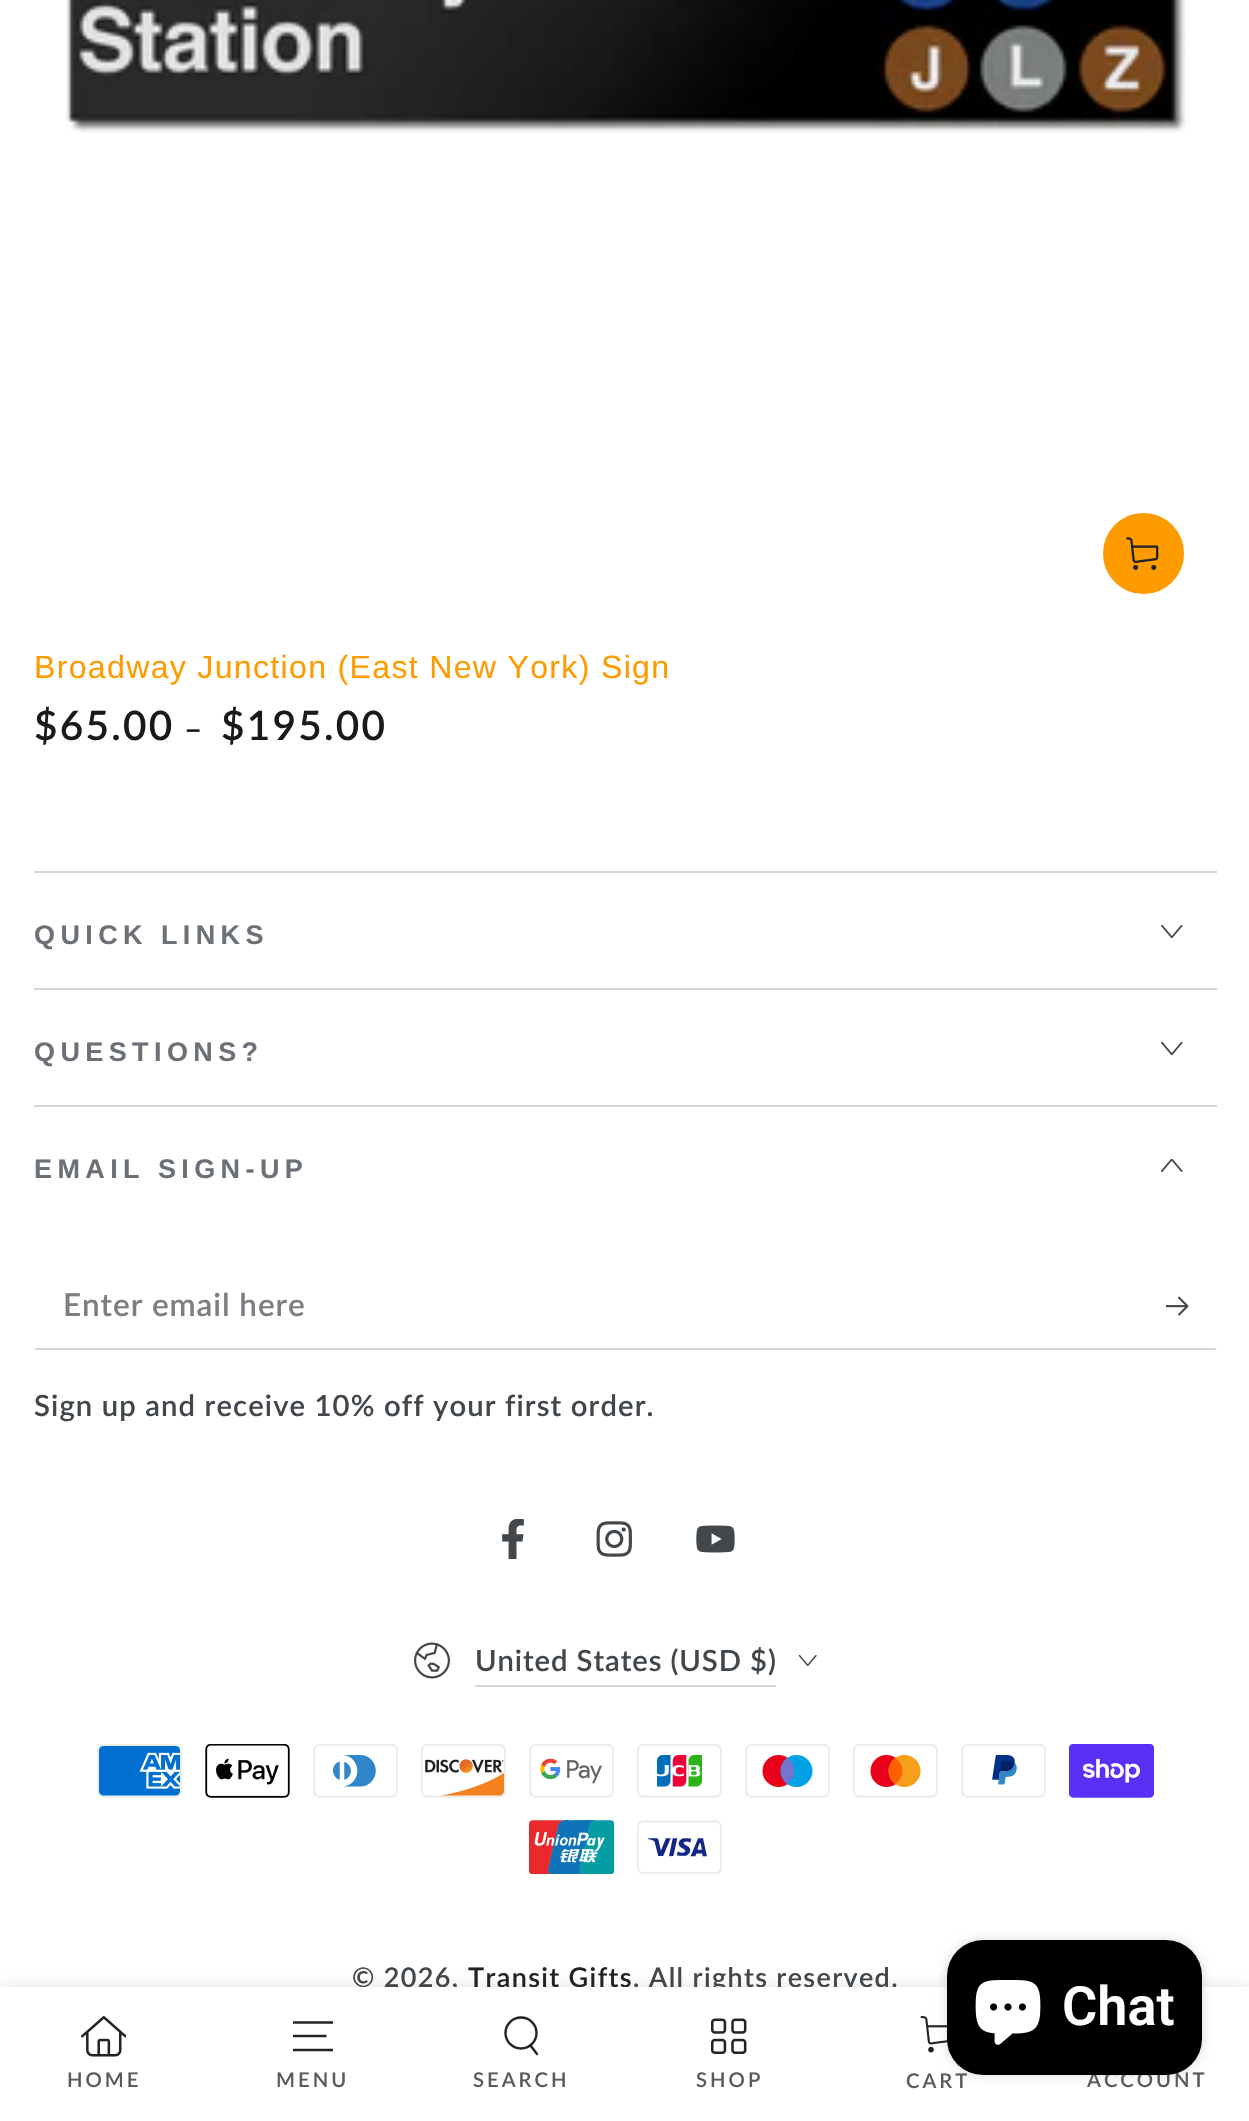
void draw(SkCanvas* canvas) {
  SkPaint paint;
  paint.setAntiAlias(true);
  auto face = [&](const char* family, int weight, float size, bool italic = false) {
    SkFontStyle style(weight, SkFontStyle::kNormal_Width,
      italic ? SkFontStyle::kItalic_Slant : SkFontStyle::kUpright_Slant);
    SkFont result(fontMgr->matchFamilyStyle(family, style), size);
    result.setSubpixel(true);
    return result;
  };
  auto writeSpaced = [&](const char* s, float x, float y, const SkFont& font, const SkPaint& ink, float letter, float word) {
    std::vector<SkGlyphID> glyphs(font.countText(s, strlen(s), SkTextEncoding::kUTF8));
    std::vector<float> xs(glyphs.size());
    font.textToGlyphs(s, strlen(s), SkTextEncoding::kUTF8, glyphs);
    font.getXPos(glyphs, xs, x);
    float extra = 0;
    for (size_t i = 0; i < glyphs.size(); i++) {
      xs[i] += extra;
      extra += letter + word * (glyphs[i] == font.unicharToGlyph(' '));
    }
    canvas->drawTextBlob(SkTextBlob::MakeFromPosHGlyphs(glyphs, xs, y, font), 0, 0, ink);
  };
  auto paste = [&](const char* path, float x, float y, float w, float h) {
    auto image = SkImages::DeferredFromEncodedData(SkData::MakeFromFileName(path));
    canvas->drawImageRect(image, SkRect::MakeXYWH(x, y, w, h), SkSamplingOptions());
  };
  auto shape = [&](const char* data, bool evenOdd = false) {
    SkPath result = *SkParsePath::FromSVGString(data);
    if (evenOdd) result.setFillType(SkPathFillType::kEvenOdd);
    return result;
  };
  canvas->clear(0xffffffff);
  paste("img/1.png", 65, 0, 1126, 133);
  paint.setColor(0xfffe9b00);
  canvas->drawCircle(1143.5f, 553.5f, 39.5f, paint);
  paint.setStroke(true);
  paint.setStrokeWidth(2);
  canvas->drawCircle(1143.5f, 553.5f, 39.5f, paint);
  paste("img/2.png", 1126, 537, 33, 33);
  paint.setStroke(false);
  paint.setColor(0xffd2d5d9);
  canvas->drawRect(SkRect::MakeXYWH(34, 871, 1183, 2), paint);
  canvas->drawRect(SkRect::MakeXYWH(34, 988, 1183, 2), paint);
  paste("img/3.png", 1161, 925, 22, 13);
  canvas->drawRect(SkRect::MakeXYWH(34, 1105, 1183, 2), paint);
  paste("img/3.png", 1161, 1042, 22, 13);
  paste("img/4.png", 1161, 1159, 22, 13);
  canvas->drawPath(shape("M1217 1350H34L36 1348H1215Z"), paint);
  paste("img/5.png", 1166, 1296, 23, 20);
  paste("img/6.png", 502, 1519, 22, 40);
  paste("img/7.png", 596, 1521, 36, 36);
  paste("img/8.png", 696, 1525, 39, 28);
  paste("img/9.png", 414, 1642, 36, 37);
  canvas->drawRect(SkRect::MakeXYWH(475, 1685, 301, 2), paint);
  paste("img/10.png", 799, 1654, 18, 13);
  paste("img/11.png", 97, 1744, 85, 54);
  paste("img/12.png", 205, 1744, 85, 54);
  paste("img/13.png", 313, 1744, 85, 54);
  paste("img/14.png", 421, 1744, 85, 54);
  paste("img/15.png", 529, 1744, 85, 54);
  paste("img/16.png", 637, 1744, 85, 54);
  paste("img/17.png", 745, 1744, 85, 54);
  paste("img/18.png", 853, 1744, 85, 54);
  paste("img/19.png", 961, 1744, 85, 54);
  paste("img/20.png", 1069, 1744, 85, 54);
  paste("img/21.png", 529, 1820, 85, 54);
  paste("img/22.png", 637, 1820, 85, 54);
  paint.setColor(0x26212326);
  paint.setMaskFilter(SkMaskFilter::MakeBlur(kNormal_SkBlurStyle, 9));
  canvas->drawRect(SkRect::MakeXYWH(0, 1989, 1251, 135), paint);
  paint.setMaskFilter(nullptr);
  auto f0 = face("Liberation Sans", 400, 32.1f);
  paint.setColor(0xfffe9b00);
  writeSpaced("Broadway Junction (East New York) Sign", 34, 678, f0, paint, 1.3f, 0);
  auto f1 = face("Lato", 600, 40.5f);
  paint.setColor(0xff1a1b18);
  writeSpaced("$65.00", 34, 740, f1, paint, 2.25f, 0);
  auto f2 = face("Lato", 600, 31.5f);
  writeSpaced("–", 184, 740, f2, paint, 2.25f, 0);
  writeSpaced("$195.00", 221, 740, f1, paint, 2.25f, 0);
  auto f3 = face("Liberation Sans", 700, 27);
  paint.setColor(0xff6b7177);
  {
    const struct { const char* s; float x, y; } items[] = {
      {"QUICK LINKS", 34, 944},
      {"QUESTIONS?", 34, 1061},
      {"EMAIL SIGN-UP", 34, 1178},
    };
    for (auto [s, x, y] : items) {
      writeSpaced(s, x, y, f3, paint, 5.4f, 0);
    }
  }
  paint.setColor(0xff7b7e82);
  writeSpaced("Enter email here", 63, 1316, f2, paint, 0.9f, 0);
  auto f4 = face("Lato", 600, 29.25f);
  paint.setColor(0xff42474c);
  writeSpaced("Sign up and receive 10% off your first order.", 34, 1416, f4, paint, 1.1f, 0);
  writeSpaced("United States (USD $)", 475, 1671, f4, paint, 0.9f, 0);
  auto f5 = face("Lato", 600, 27);
  writeSpaced("© 2026,", 352, 1987, f5, paint, 1.35f, 0);
  paint.setColor(0xff212326);
  writeSpaced("Transit Gifts", 468, 1987, f5, paint, 1.35f, 0);
  paint.setColor(0xff42474c);
  writeSpaced(". All rights reserved.", 633, 1987, f5, paint, 1.35f, 0);
  paint.setColor(0xffffffff);
  canvas->drawRect(SkRect::MakeXYWH(0, 1987, 1249, 134), paint);
  paste("img/24.png", 81, 2016, 45, 41);
  auto f6 = face("Lato", 600, 20.25f);
  paint.setColor(0xff595a5c);
  writeSpaced("HOME", 67, 2087, f6, paint, 3, 0);
  canvas->save();
  canvas->clipRect(SkRect::MakeXYWH(293, 2016, 40, 41));
  paint.setStroke(true);
  paint.setStrokeWidth(2.5f);
  paint.setColor(0xff212326);
  canvas->drawPath(shape("M292.5 2050H333M292.5 2036H326.5M292.5 2022.5H333"), paint);
  canvas->restore();
  paint.setStroke(false);
  paint.setColor(0xff595a5c);
  writeSpaced("MENU", 276, 2087, f6, paint, 3, 0);
  paint.setStroke(true);
  paint.setStrokeWidth(2.4f);
  paint.setColor(0xff212326);
  canvas->drawCircle(521, 2033, 15.5f, paint);
  paint.setStrokeCap(SkPaint::kRound_Cap);
  canvas->drawPath(shape("M530.5 2045.5L537 2054"), paint);
  paint.setStroke(false);
  paint.setColor(0xff595a5c);
  writeSpaced("SEARCH", 473, 2087, f6, paint, 3, 0);
  paste("img/25.png", 711, 2018, 36, 36);
  writeSpaced("SHOP", 696, 2087, f6, paint, 3, 0);
  paste("img/26.png", 920, 2015, 30, 38);
  paint.setColor(0x26000000);
  paint.setMaskFilter(SkMaskFilter::MakeBlur(kNormal_SkBlurStyle, 5.5f));
  canvas->drawRoundRect(SkRect::MakeXYWH(947, 1940, 255, 135), 36, 36, paint);
  paint.setMaskFilter(nullptr);
  paint.setColor(0xff595a5c);
  writeSpaced("CART", 906, 2088, f6, paint, 3, 0);
  writeSpaced("ACCOUNT", 1087, 2087, f6, paint, 3, 0);
  paint.setColor(0xff000000);
  canvas->drawRoundRect(SkRect::MakeXYWH(947, 1940, 255, 135), 36, 36, paint);
  auto f7 = face("Roboto", 600, 54);
  paint.setColor(0xffffffff);
  canvas->drawString("Chat", 1062, 2025, f7, paint);
  paste("img/23.png", 975, 1980, 66, 65);
}
